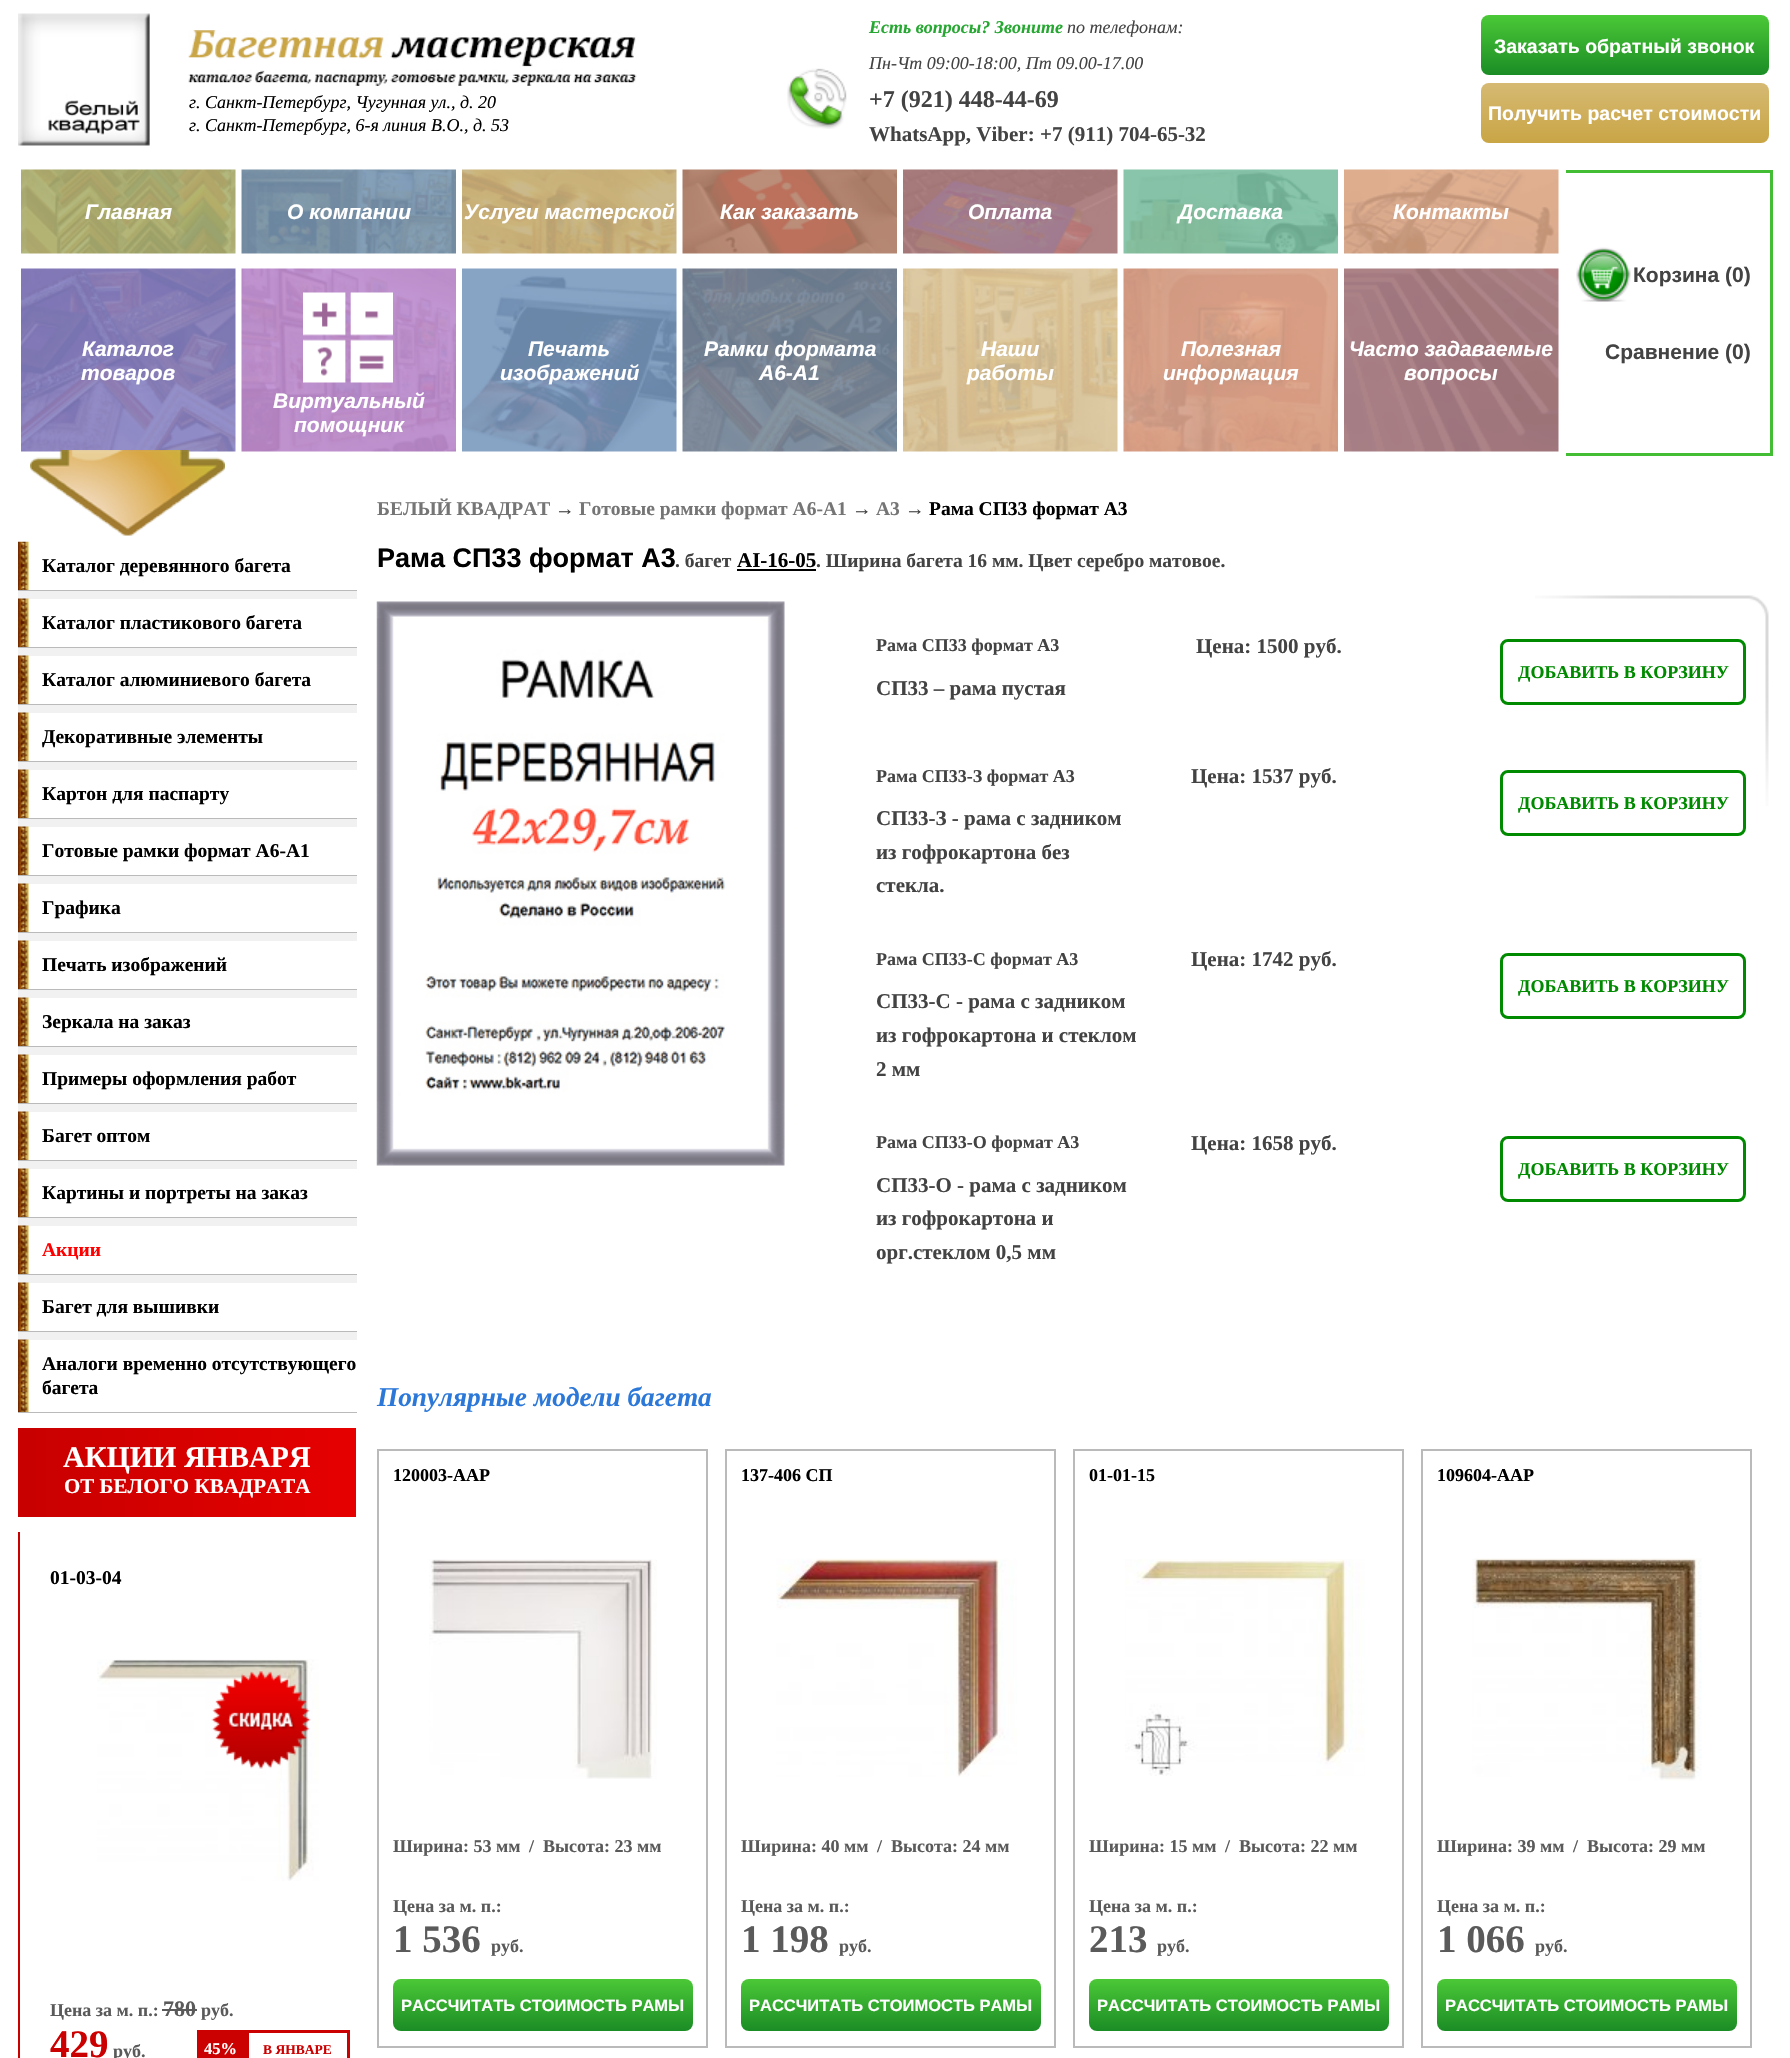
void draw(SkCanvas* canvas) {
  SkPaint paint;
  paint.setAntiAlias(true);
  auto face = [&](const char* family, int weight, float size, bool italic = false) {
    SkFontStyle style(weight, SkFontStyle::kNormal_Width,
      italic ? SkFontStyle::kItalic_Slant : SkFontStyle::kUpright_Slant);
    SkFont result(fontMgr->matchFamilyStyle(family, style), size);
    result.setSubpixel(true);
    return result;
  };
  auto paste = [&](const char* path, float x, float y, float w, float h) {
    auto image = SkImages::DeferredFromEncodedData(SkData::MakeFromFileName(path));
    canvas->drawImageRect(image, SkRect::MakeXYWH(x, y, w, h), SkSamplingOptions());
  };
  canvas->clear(0xffffffff);
  paste("img/1.png", 18, 13, 132, 133);
  paste("img/2.png", 188, 30, 449, 56);
  paste("img/3.png", 787, 68, 60, 61);
  {
    const SkColor colors[] = {0xff4bc837, 0xff1b8c25};
    const float stops[] = {0, 1};
    const SkPoint ends[] = {{1625, 15}, {1625, 75}};
    paint.setShader(SkGradientShader::MakeLinear(ends, colors, stops, 2, SkTileMode::kClamp));
    paint.setAlpha(255);
  }
  canvas->drawRoundRect(SkRect::MakeXYWH(1481, 15, 288, 60), 8, 8, paint);
  {
    const SkColor colors[] = {0xffd6ba74, 0xffc9a545};
    const float stops[] = {0, 1};
    const SkPoint ends[] = {{1625, 82}, {1625, 143}};
    paint.setShader(SkGradientShader::MakeLinear(ends, colors, stops, 2, SkTileMode::kClamp));
    paint.setAlpha(255);
  }
  canvas->drawRoundRect(SkRect::MakeXYWH(1481, 83, 288, 60), 8, 8, paint);
  paste("img/4.png", 21, 169, 215, 85);
  paste("img/5.png", 241, 169, 215, 85);
  paste("img/6.png", 462, 169, 215, 85);
  paste("img/7.png", 682, 169, 215, 85);
  paste("img/8.png", 903, 169, 215, 85);
  paste("img/9.png", 1123, 169, 215, 85);
  paste("img/10.png", 1344, 169, 215, 85);
  paint.setShader(nullptr);
  {
    const struct { float x, y, w, h; SkColor color; } items[] = {
      {1566, 170, 207, 3, 0xff43be34},
      {1770, 170, 3, 286, 0xff43be34},
      {1566, 453, 207, 3, 0xff43be34},
    };
    for (auto [x, y, w, h, color] : items) {
      paint.setColor(color);
      canvas->drawRect(SkRect::MakeXYWH(x, y, w, h), paint);
    }
  }
  paste("img/11.png", 1576, 247, 55, 55);
  paste("img/12.png", 21, 268, 215, 184);
  paste("img/13.png", 462, 268, 215, 184);
  paste("img/14.png", 682, 268, 215, 184);
  paste("img/15.png", 903, 268, 215, 184);
  paste("img/16.png", 1123, 268, 215, 184);
  paste("img/17.png", 1344, 268, 215, 184);
  paste("img/19.png", 241, 268, 215, 184);
  paste("img/18.png", 303, 292, 90, 91);
  paste("img/20.png", 30, 450, 195, 86);
  paste("img/21.png", 18, 541, 11, 49);
  paint.setColor(0xffbababa);
  canvas->drawRect(SkRect::MakeXYWH(18, 590, 339, 1), paint);
  paint.setColor(0xfff1f1f1);
  canvas->drawRect(SkRect::MakeXYWH(18, 591, 339, 8), paint);
  paste("img/22.png", 18, 598, 11, 49);
  paint.setColor(0xffbababa);
  canvas->drawRect(SkRect::MakeXYWH(18, 647, 339, 1), paint);
  paint.setColor(0xfff1f1f1);
  canvas->drawRect(SkRect::MakeXYWH(18, 648, 339, 8), paint);
  paste("img/22.png", 18, 655, 11, 49);
  paint.setColor(0xffbababa);
  canvas->drawRect(SkRect::MakeXYWH(18, 704, 339, 1), paint);
  paint.setColor(0xfff1f1f1);
  canvas->drawRect(SkRect::MakeXYWH(18, 705, 339, 8), paint);
  paste("img/22.png", 18, 712, 11, 49);
  paint.setColor(0xffbababa);
  canvas->drawRect(SkRect::MakeXYWH(18, 761, 339, 1), paint);
  paint.setColor(0xfff1f1f1);
  canvas->drawRect(SkRect::MakeXYWH(18, 762, 339, 8), paint);
  paste("img/22.png", 18, 769, 11, 49);
  paint.setColor(0xffbababa);
  canvas->drawRect(SkRect::MakeXYWH(18, 818, 339, 1), paint);
  paint.setColor(0xfff1f1f1);
  canvas->drawRect(SkRect::MakeXYWH(18, 819, 339, 8), paint);
  paste("img/22.png", 18, 826, 11, 49);
  paint.setColor(0xffbababa);
  canvas->drawRect(SkRect::MakeXYWH(18, 875, 339, 1), paint);
  paint.setColor(0xfff1f1f1);
  canvas->drawRect(SkRect::MakeXYWH(18, 876, 339, 8), paint);
  paste("img/22.png", 18, 883, 11, 49);
  paint.setColor(0xffbababa);
  canvas->drawRect(SkRect::MakeXYWH(18, 932, 339, 1), paint);
  paint.setColor(0xfff1f1f1);
  canvas->drawRect(SkRect::MakeXYWH(18, 933, 339, 8), paint);
  paste("img/22.png", 18, 940, 11, 49);
  paint.setColor(0xffbababa);
  canvas->drawRect(SkRect::MakeXYWH(18, 989, 339, 1), paint);
  paint.setColor(0xfff1f1f1);
  canvas->drawRect(SkRect::MakeXYWH(18, 990, 339, 8), paint);
  paste("img/22.png", 18, 997, 11, 49);
  paint.setColor(0xffbababa);
  canvas->drawRect(SkRect::MakeXYWH(18, 1046, 339, 1), paint);
  paint.setColor(0xfff1f1f1);
  canvas->drawRect(SkRect::MakeXYWH(18, 1047, 339, 8), paint);
  paste("img/22.png", 18, 1054, 11, 49);
  paint.setColor(0xffbababa);
  canvas->drawRect(SkRect::MakeXYWH(18, 1103, 339, 1), paint);
  paint.setColor(0xfff1f1f1);
  canvas->drawRect(SkRect::MakeXYWH(18, 1104, 339, 8), paint);
  paste("img/22.png", 18, 1111, 11, 49);
  paint.setColor(0xffbababa);
  canvas->drawRect(SkRect::MakeXYWH(18, 1160, 339, 1), paint);
  paint.setColor(0xfff1f1f1);
  canvas->drawRect(SkRect::MakeXYWH(18, 1161, 339, 8), paint);
  paste("img/22.png", 18, 1168, 11, 49);
  paint.setColor(0xffbababa);
  canvas->drawRect(SkRect::MakeXYWH(18, 1217, 339, 1), paint);
  paint.setColor(0xfff1f1f1);
  canvas->drawRect(SkRect::MakeXYWH(18, 1218, 339, 8), paint);
  paste("img/22.png", 18, 1225, 11, 49);
  paint.setColor(0xffbababa);
  canvas->drawRect(SkRect::MakeXYWH(18, 1274, 339, 1), paint);
  paint.setColor(0xfff1f1f1);
  canvas->drawRect(SkRect::MakeXYWH(18, 1275, 339, 8), paint);
  paste("img/22.png", 18, 1282, 11, 49);
  paint.setColor(0xffbababa);
  canvas->drawRect(SkRect::MakeXYWH(18, 1331, 339, 1), paint);
  paint.setColor(0xfff1f1f1);
  canvas->drawRect(SkRect::MakeXYWH(18, 1332, 339, 8), paint);
  paste("img/23.png", 18, 1339, 11, 73);
  paint.setColor(0xffbababa);
  canvas->drawRect(SkRect::MakeXYWH(18, 1412, 339, 1), paint);
  {
    const SkColor colors[] = {0xffc80000, 0xffe60000};
    const float stops[] = {0, 1};
    const SkPoint ends[] = {{18, 1472}, {356, 1472}};
    paint.setShader(SkGradientShader::MakeLinear(ends, colors, stops, 2, SkTileMode::kClamp));
    paint.setAlpha(255);
  }
  canvas->drawRect(SkRect::MakeXYWH(18, 1428, 338, 89), paint);
  paint.setShader(nullptr);
  paint.setColor(0xffc80000);
  canvas->drawRect(SkRect::MakeXYWH(18, 1532, 2, 526), paint);
  paste("img/24.png", 97, 1659, 222, 222);
  paste("img/25.png", 211, 1671, 100, 98);
  {
    const struct { float x, y, w, h; SkColor color; } items[] = {
      {162, 2009, 35, 2, 0xff5a5a5a},
      {197, 2030, 153, 28, 0xffcb0000},
      {249, 2033, 98, 25, 0xffffffff},
      {737, 569, 79, 2, 0xff000000},
    };
    for (auto [x, y, w, h, color] : items) {
      paint.setColor(color);
      canvas->drawRect(SkRect::MakeXYWH(x, y, w, h), paint);
    }
  }
  paste("img/26.png", 1535, 595, 234, 211);
  paint.setStroke(true);
  paint.setStrokeWidth(3);
  paint.setColor(0xff008a00);
  canvas->drawRoundRect(SkRect::MakeXYWH(1501.5f, 640.5f, 243, 63), 6.5f, 6.5f, paint);
  canvas->drawRoundRect(SkRect::MakeXYWH(1501.5f, 771.5f, 243, 63), 6.5f, 6.5f, paint);
  canvas->drawRoundRect(SkRect::MakeXYWH(1501.5f, 954.5f, 243, 63), 6.5f, 6.5f, paint);
  canvas->drawRoundRect(SkRect::MakeXYWH(1501.5f, 1137.5f, 243, 63), 6.5f, 6.5f, paint);
  paste("img/27.png", 376, 601, 409, 565);
  paint.setStrokeWidth(2);
  paint.setColor(0xffbababa);
  canvas->drawRect(SkRect::MakeXYWH(378, 1450, 329, 597), paint);
  paste("img/28.png", 429, 1559, 228, 220);
  paint.setStroke(false);
  {
    const SkColor colors[] = {0xff4bc837, 0xff1b8c25};
    const float stops[] = {0, 1};
    const SkPoint ends[] = {{543, 1979}, {543, 2031}};
    paint.setShader(SkGradientShader::MakeLinear(ends, colors, stops, 2, SkTileMode::kClamp));
    paint.setAlpha(255);
  }
  canvas->drawRoundRect(SkRect::MakeXYWH(393, 1979, 300, 52), 8, 8, paint);
  paint.setStroke(true);
  paint.setShader(nullptr);
  paint.setColor(0xffbababa);
  canvas->drawRect(SkRect::MakeXYWH(726, 1450, 329, 597), paint);
  paste("img/29.png", 776, 1558, 241, 219);
  paint.setStroke(false);
  {
    const SkColor colors[] = {0xff4bc837, 0xff1b8c25};
    const float stops[] = {0, 1};
    const SkPoint ends[] = {{891, 1979}, {891, 2031}};
    paint.setShader(SkGradientShader::MakeLinear(ends, colors, stops, 2, SkTileMode::kClamp));
    paint.setAlpha(255);
  }
  canvas->drawRoundRect(SkRect::MakeXYWH(741, 1979, 300, 52), 8, 8, paint);
  paint.setStroke(true);
  paint.setShader(nullptr);
  paint.setColor(0xffbababa);
  canvas->drawRect(SkRect::MakeXYWH(1074, 1450, 329, 597), paint);
  paste("img/30.png", 1125, 1559, 240, 217);
  paint.setStroke(false);
  {
    const SkColor colors[] = {0xff4bc837, 0xff1b8c25};
    const float stops[] = {0, 1};
    const SkPoint ends[] = {{1239, 1979}, {1239, 2031}};
    paint.setShader(SkGradientShader::MakeLinear(ends, colors, stops, 2, SkTileMode::kClamp));
    paint.setAlpha(255);
  }
  canvas->drawRoundRect(SkRect::MakeXYWH(1089, 1979, 300, 52), 8, 8, paint);
  paint.setStroke(true);
  paint.setShader(nullptr);
  paint.setColor(0xffbababa);
  canvas->drawRect(SkRect::MakeXYWH(1422, 1450, 329, 597), paint);
  paste("img/31.png", 1472, 1558, 230, 223);
  paint.setStroke(false);
  {
    const SkColor colors[] = {0xff4bc837, 0xff1b8c25};
    const float stops[] = {0, 1};
    const SkPoint ends[] = {{1587, 1979}, {1587, 2031}};
    paint.setShader(SkGradientShader::MakeLinear(ends, colors, stops, 2, SkTileMode::kClamp));
    paint.setAlpha(255);
  }
  canvas->drawRoundRect(SkRect::MakeXYWH(1437, 1979, 300, 52), 8, 8, paint);
  auto f0 = face("Liberation Serif", 400, 18, true);
  paint.setShader(nullptr);
  paint.setColor(0xff000000);
  canvas->drawString("г. Санкт-Петербург, Чугунная ул., д. 20", 189, 108, f0, paint);
  canvas->drawString("г. Санкт-Петербург, 6-я линия В.О., д. 53", 189, 131, f0, paint);
  auto f1 = face("Liberation Serif", 700, 18, true);
  paint.setColor(0xff26a731);
  canvas->drawString("Есть вопросы? Звоните", 869, 33, f1, paint);
  paint.setColor(0xff434343);
  canvas->drawString("по телефонам:", 1067, 33, f0, paint);
  canvas->drawString("Пн-Чт 09:00-18:00, Пт 09.00-17.00", 869, 69, f0, paint);
  auto f2 = face("Liberation Serif", 700, 24);
  canvas->drawString("+7 (921) 448-44-69", 869, 107, f2, paint);
  auto f3 = face("Liberation Serif", 700, 21);
  canvas->drawString("WhatsApp, Viber: +7 (911) 704-65-32", 869, 141, f3, paint);
  auto f4 = face("Liberation Sans", 700, 19.5f);
  paint.setColor(0xffffffff);
  canvas->drawString("Заказать обратный звонок", 1494, 53, f4, paint);
  canvas->drawString("Получить расчет стоимости", 1488, 120, f4, paint);
  auto f5 = face("Liberation Sans", 700, 21, true);
  {
    const struct { const char* s; float x, y; } items[] = {
      {"Главная", 85, 219},
      {"О компании", 287, 219},
      {"Услуги мастерской", 464, 219},
      {"Как заказать", 720, 219},
      {"Оплата", 968, 219},
      {"Доставка", 1178, 219},
      {"Контакты", 1393, 219},
    };
    for (auto [s, x, y] : items) {
      canvas->drawString(s, x, y, f5, paint);
    }
  }
  auto f6 = face("Liberation Sans", 700, 21);
  paint.setColor(0xff434343);
  canvas->drawString("Корзина (0)", 1633, 282, f6, paint);
  canvas->drawString("Сравнение (0)", 1605, 359, f6, paint);
  paint.setColor(0xffffffff);
  {
    const struct { const char* s; float x, y; } items[] = {
      {"Каталог", 82, 356},
      {"товаров", 81, 380},
      {"Печать", 528, 356},
      {"изображений", 500, 380},
      {"Рамки формата", 704, 356},
      {"А6-А1", 759, 380},
      {"Наши", 981, 356},
      {"работы", 967, 380},
      {"Полезная", 1181, 356},
      {"информация", 1163, 380},
      {"Часто задаваемые", 1349, 356},
      {"вопросы", 1404, 380},
      {"Виртуальный", 273, 408},
      {"помощник", 294, 432},
    };
    for (auto [s, x, y] : items) {
      canvas->drawString(s, x, y, f5, paint);
    }
  }
  auto f7 = face("Liberation Serif", 700, 19.5f);
  paint.setColor(0xff000000);
  {
    const struct { const char* s; float x, y; } items[] = {
      {"Каталог деревянного багета", 42, 572},
      {"Каталог пластикового багета", 42, 629},
      {"Каталог алюминиевого багета", 42, 686},
      {"Декоративные элементы", 42, 743},
      {"Картон для паспарту", 42, 800},
      {"Готовые рамки формат A6-A1", 42, 857},
      {"Графика", 42, 914},
      {"Печать изображений", 42, 971},
      {"Зеркала на заказ", 42, 1028},
      {"Примеры оформления работ", 42, 1085},
      {"Багет оптом", 42, 1142},
      {"Картины и портреты на заказ", 42, 1199},
    };
    for (auto [s, x, y] : items) {
      canvas->drawString(s, x, y, f7, paint);
    }
  }
  paint.setColor(0xffff0000);
  canvas->drawString("Акции", 42, 1256, f7, paint);
  paint.setColor(0xff000000);
  {
    const struct { const char* s; float x, y; } items[] = {
      {"Багет для вышивки", 42, 1313},
      {"Аналоги временно отсутствующего", 42, 1370},
      {"багета", 42, 1394},
    };
    for (auto [s, x, y] : items) {
      canvas->drawString(s, x, y, f7, paint);
    }
  }
  auto f8 = face("Liberation Serif", 700, 30);
  paint.setColor(0xffffffff);
  canvas->drawString("АКЦИИ ЯНВАРЯ", 63, 1467, f8, paint);
  canvas->drawString("ОТ БЕЛОГО КВАДРАТА", 64, 1493, f3, paint);
  paint.setColor(0xff000000);
  canvas->drawString("01-03-04", 50, 1584, f7, paint);
  auto f9 = face("Liberation Serif", 700, 18);
  paint.setColor(0xff5a5a5a);
  canvas->drawString("Цена за м. п.:", 50, 2016, f9, paint);
  auto f10 = face("Liberation Serif", 700, 22);
  canvas->drawString("780", 163, 2016, f10, paint);
  canvas->drawString("руб.", 201, 2016, f9, paint);
  auto f11 = face("Liberation Serif", 700, 39);
  paint.setColor(0xffcb0000);
  canvas->drawString("429", 50, 2057, f11, paint);
  paint.setColor(0xff5a5a5a);
  canvas->drawString("руб.", 113, 2057, f9, paint);
  auto f12 = face("Liberation Serif", 700, 16.5f);
  paint.setColor(0xffffffff);
  canvas->drawString("45%", 204, 2054, f12, paint);
  auto f13 = face("Liberation Serif", 700, 13.5f);
  paint.setColor(0xffcb0000);
  canvas->drawString("В ЯНВАРЕ", 263, 2054, f13, paint);
  paint.setColor(0xff757575);
  canvas->drawString("БЕЛЫЙ КВАДРАТ", 377, 515, f7, paint);
  paint.setColor(0xff434343);
  canvas->drawString("→", 555, 515, f7, paint);
  paint.setColor(0xff757575);
  canvas->drawString("Готовые рамки формат A6-A1", 579, 515, f7, paint);
  paint.setColor(0xff434343);
  canvas->drawString("→", 852, 515, f7, paint);
  paint.setColor(0xff757575);
  canvas->drawString("A3", 876, 515, f7, paint);
  paint.setColor(0xff434343);
  canvas->drawString("→", 905, 515, f7, paint);
  paint.setColor(0xff000000);
  canvas->drawString("Рама СП33 формат А3", 929, 515, f7, paint);
  auto f14 = face("Liberation Sans", 700, 27);
  canvas->drawString("Рама СП33 формат А3", 377, 567, f14, paint);
  paint.setColor(0xff434343);
  canvas->drawString(". багет", 675, 567, f7, paint);
  paint.setColor(0xff000000);
  canvas->drawString("AI-16-05", 737, 567, f3, paint);
  paint.setColor(0xff434343);
  canvas->drawString(". Ширина багета 16 мм. Цвет серебро матовое.", 816, 567, f7, paint);
  canvas->drawString("Рама СП33 формат А3", 876, 651, f9, paint);
  canvas->drawString("СП33 – рама пустая", 876, 695, f3, paint);
  canvas->drawString("Цена: 1500 руб.", 1196, 653, f3, paint);
  paint.setColor(0xff008a00);
  canvas->drawString("ДОБАВИТЬ В КОРЗИНУ", 1518, 678, f9, paint);
  paint.setColor(0xff434343);
  canvas->drawString("Рама СП33-З формат А3", 876, 782, f9, paint);
  {
    const struct { const char* s; float x, y; } items[] = {
      {"СП33-З - рама с задником", 876, 825},
      {"из гофрокартона без", 876, 859},
      {"стекла.", 876, 892},
      {"Цена: 1537 руб.", 1191, 783},
    };
    for (auto [s, x, y] : items) {
      canvas->drawString(s, x, y, f3, paint);
    }
  }
  paint.setColor(0xff008a00);
  canvas->drawString("ДОБАВИТЬ В КОРЗИНУ", 1518, 809, f9, paint);
  paint.setColor(0xff434343);
  canvas->drawString("Рама СП33-С формат А3", 876, 965, f9, paint);
  {
    const struct { const char* s; float x, y; } items[] = {
      {"СП33-С - рама с задником", 876, 1008},
      {"из гофрокартона и стеклом", 876, 1042},
      {"2 мм", 876, 1076},
      {"Цена: 1742 руб.", 1191, 966},
    };
    for (auto [s, x, y] : items) {
      canvas->drawString(s, x, y, f3, paint);
    }
  }
  paint.setColor(0xff008a00);
  canvas->drawString("ДОБАВИТЬ В КОРЗИНУ", 1518, 992, f9, paint);
  paint.setColor(0xff434343);
  canvas->drawString("Рама СП33-О формат А3", 876, 1148, f9, paint);
  {
    const struct { const char* s; float x, y; } items[] = {
      {"СП33-О - рама с задником", 876, 1192},
      {"из гофрокартона и", 876, 1225},
      {"орг.стеклом 0,5 мм", 876, 1259},
      {"Цена: 1658 руб.", 1191, 1150},
    };
    for (auto [s, x, y] : items) {
      canvas->drawString(s, x, y, f3, paint);
    }
  }
  paint.setColor(0xff008a00);
  canvas->drawString("ДОБАВИТЬ В КОРЗИНУ", 1518, 1175, f9, paint);
  auto f15 = face("Liberation Serif", 700, 27.25f, true);
  paint.setColor(0xff2c78d8);
  canvas->drawString("Популярные модели багета", 377, 1406, f15, paint);
  paint.setColor(0xff000000);
  canvas->drawString("120003-AAP", 393, 1481, f9, paint);
  paint.setColor(0xff5a5a5a);
  {
    const struct { const char* s; float x, y; } items[] = {
      {"Ширина: 53 мм", 393, 1852},
      {"/  Высота: 23 мм", 529, 1852},
      {"Цена за м. п.:", 393, 1912},
    };
    for (auto [s, x, y] : items) {
      canvas->drawString(s, x, y, f9, paint);
    }
  }
  canvas->drawString("1 536", 393, 1952, f11, paint);
  canvas->drawString("руб.", 491, 1952, f9, paint);
  auto f16 = face("Liberation Sans", 700, 16.5f);
  paint.setColor(0xffffffff);
  canvas->drawString("РАССЧИТАТЬ СТОИМОСТЬ РАМЫ", 401, 2011, f16, paint);
  paint.setColor(0xff000000);
  canvas->drawString("137-406 СП", 741, 1481, f9, paint);
  paint.setColor(0xff5a5a5a);
  {
    const struct { const char* s; float x, y; } items[] = {
      {"Ширина: 40 мм", 741, 1852},
      {"/  Высота: 24 мм", 877, 1852},
      {"Цена за м. п.:", 741, 1912},
    };
    for (auto [s, x, y] : items) {
      canvas->drawString(s, x, y, f9, paint);
    }
  }
  canvas->drawString("1 198", 741, 1952, f11, paint);
  canvas->drawString("руб.", 839, 1952, f9, paint);
  paint.setColor(0xffffffff);
  canvas->drawString("РАССЧИТАТЬ СТОИМОСТЬ РАМЫ", 749, 2011, f16, paint);
  paint.setColor(0xff000000);
  canvas->drawString("01-01-15", 1089, 1481, f9, paint);
  paint.setColor(0xff5a5a5a);
  {
    const struct { const char* s; float x, y; } items[] = {
      {"Ширина: 15 мм", 1089, 1852},
      {"/  Высота: 22 мм", 1225, 1852},
      {"Цена за м. п.:", 1089, 1912},
    };
    for (auto [s, x, y] : items) {
      canvas->drawString(s, x, y, f9, paint);
    }
  }
  canvas->drawString("213", 1089, 1952, f11, paint);
  canvas->drawString("руб.", 1157, 1952, f9, paint);
  paint.setColor(0xffffffff);
  canvas->drawString("РАССЧИТАТЬ СТОИМОСТЬ РАМЫ", 1097, 2011, f16, paint);
  paint.setColor(0xff000000);
  canvas->drawString("109604-AAP", 1437, 1481, f9, paint);
  paint.setColor(0xff5a5a5a);
  {
    const struct { const char* s; float x, y; } items[] = {
      {"Ширина: 39 мм", 1437, 1852},
      {"/  Высота: 29 мм", 1573, 1852},
      {"Цена за м. п.:", 1437, 1912},
    };
    for (auto [s, x, y] : items) {
      canvas->drawString(s, x, y, f9, paint);
    }
  }
  canvas->drawString("1 066", 1437, 1952, f11, paint);
  canvas->drawString("руб.", 1535, 1952, f9, paint);
  paint.setColor(0xffffffff);
  canvas->drawString("РАССЧИТАТЬ СТОИМОСТЬ РАМЫ", 1445, 2011, f16, paint);
}
